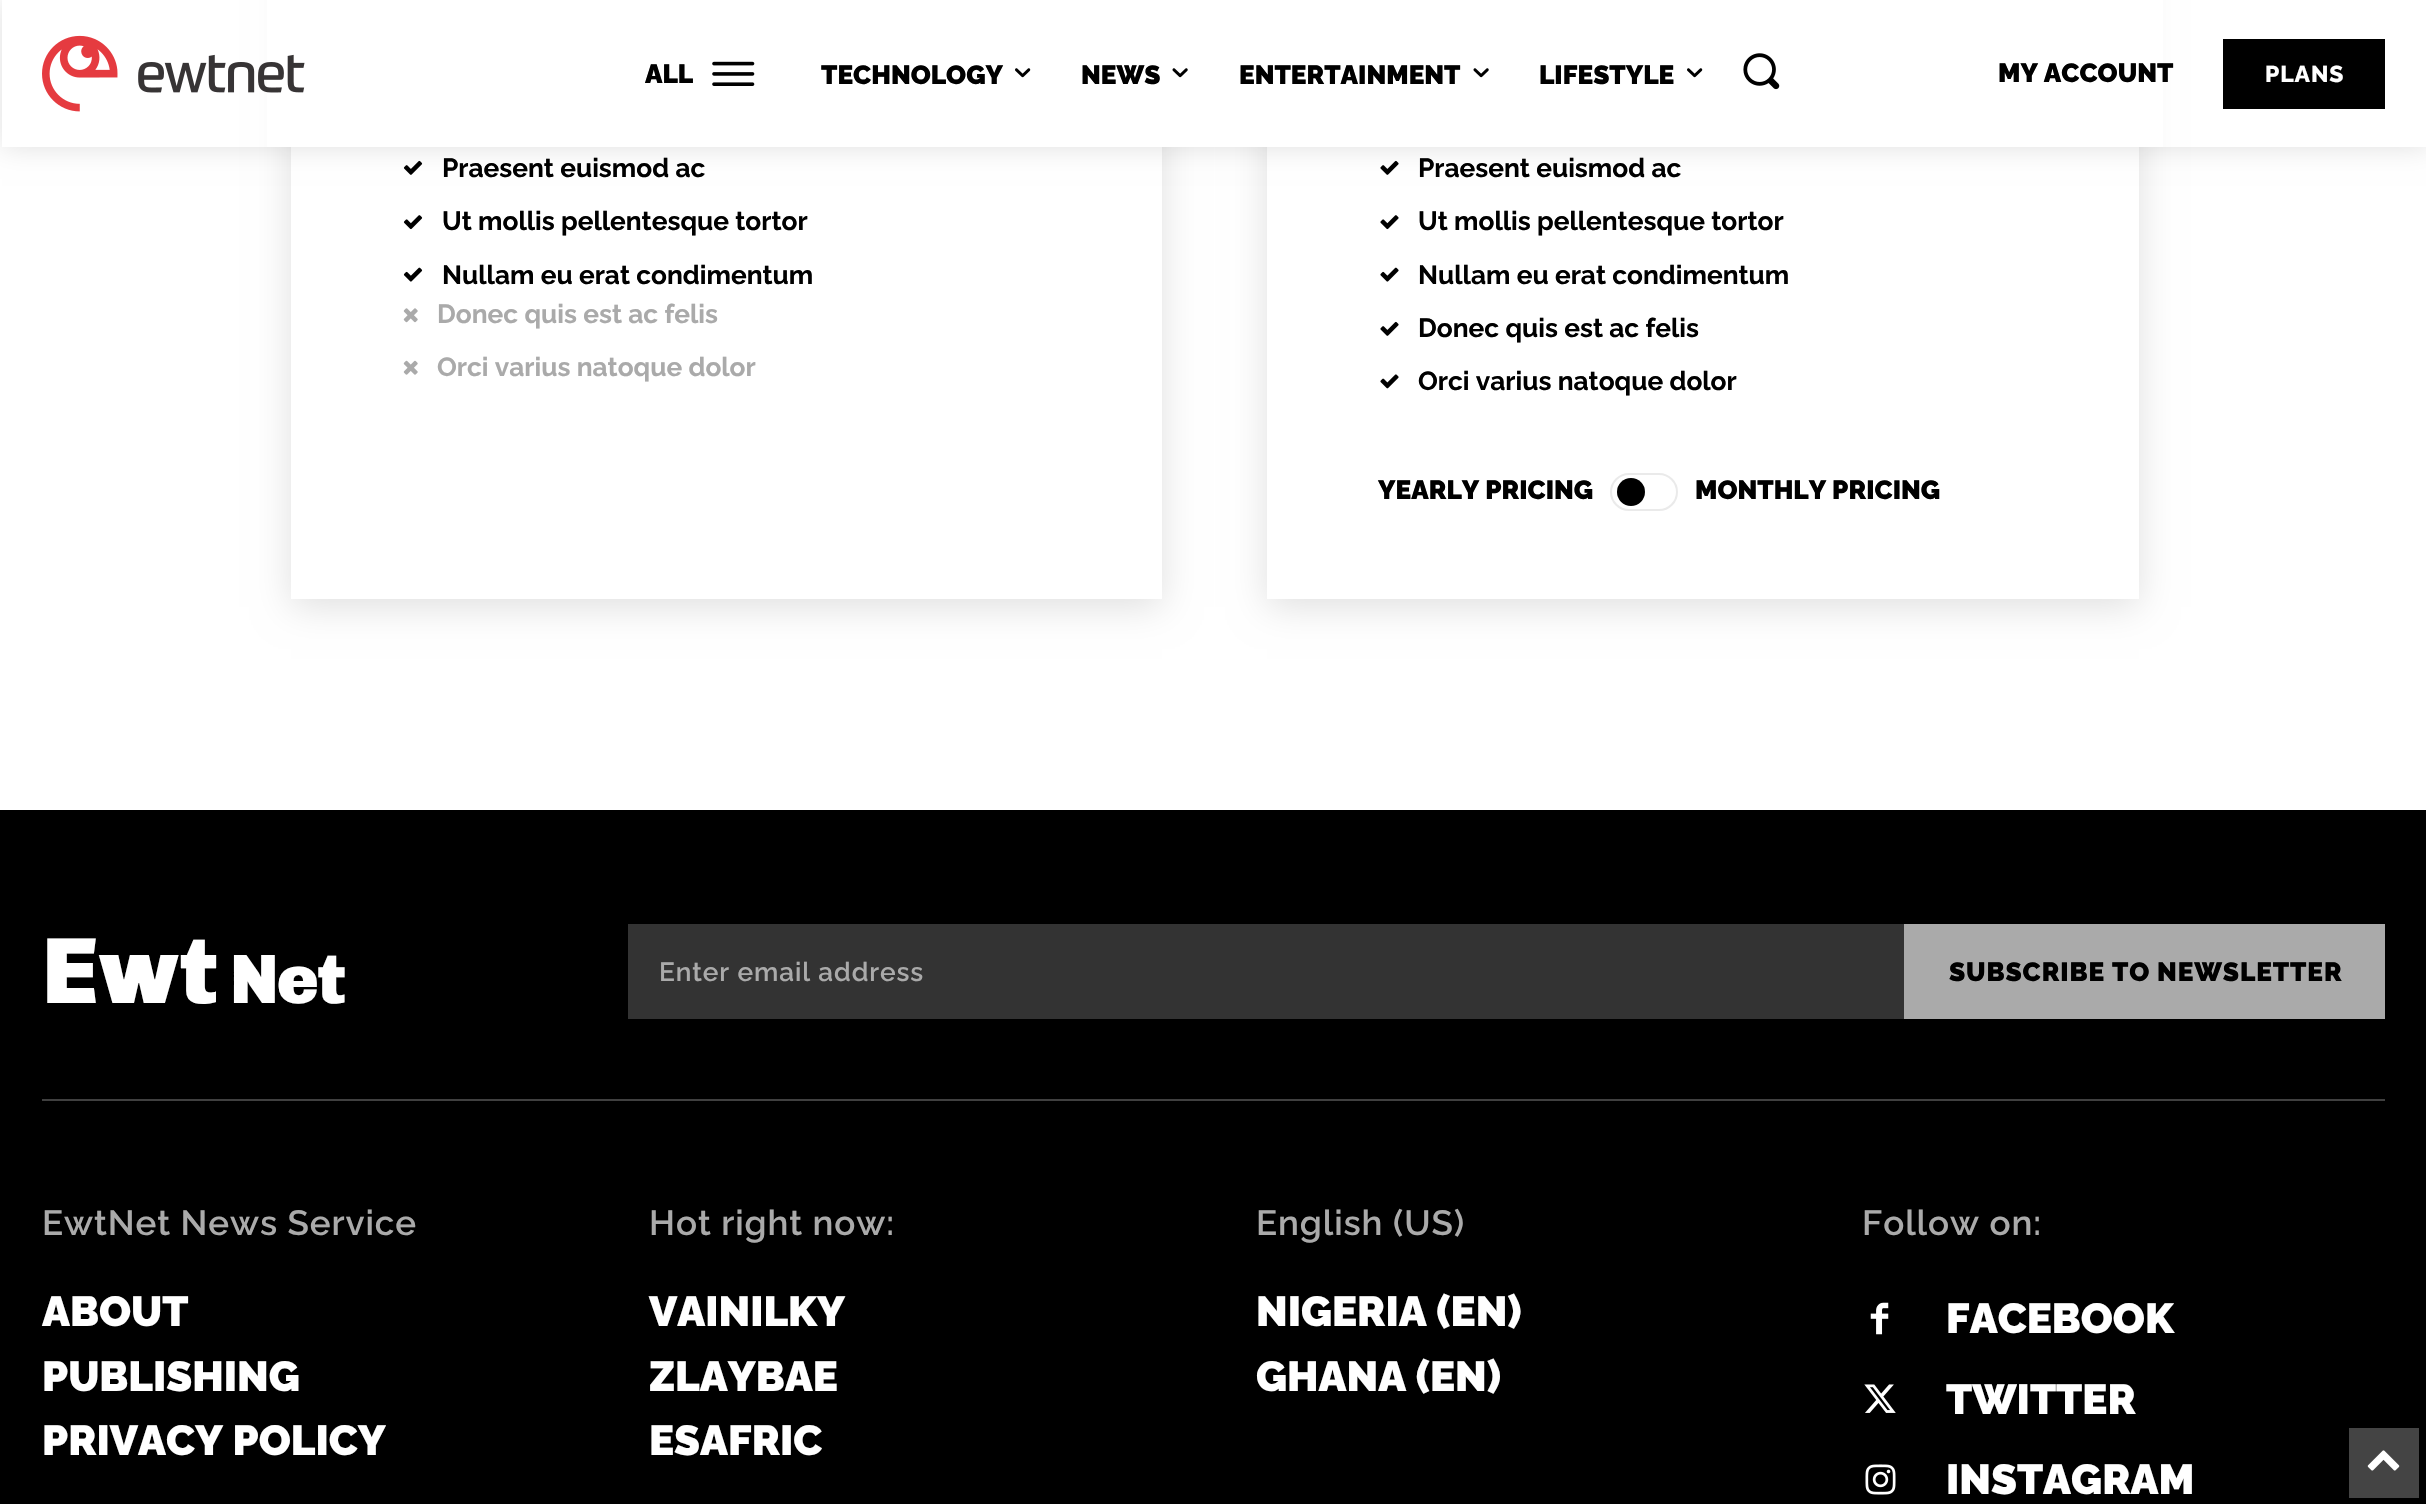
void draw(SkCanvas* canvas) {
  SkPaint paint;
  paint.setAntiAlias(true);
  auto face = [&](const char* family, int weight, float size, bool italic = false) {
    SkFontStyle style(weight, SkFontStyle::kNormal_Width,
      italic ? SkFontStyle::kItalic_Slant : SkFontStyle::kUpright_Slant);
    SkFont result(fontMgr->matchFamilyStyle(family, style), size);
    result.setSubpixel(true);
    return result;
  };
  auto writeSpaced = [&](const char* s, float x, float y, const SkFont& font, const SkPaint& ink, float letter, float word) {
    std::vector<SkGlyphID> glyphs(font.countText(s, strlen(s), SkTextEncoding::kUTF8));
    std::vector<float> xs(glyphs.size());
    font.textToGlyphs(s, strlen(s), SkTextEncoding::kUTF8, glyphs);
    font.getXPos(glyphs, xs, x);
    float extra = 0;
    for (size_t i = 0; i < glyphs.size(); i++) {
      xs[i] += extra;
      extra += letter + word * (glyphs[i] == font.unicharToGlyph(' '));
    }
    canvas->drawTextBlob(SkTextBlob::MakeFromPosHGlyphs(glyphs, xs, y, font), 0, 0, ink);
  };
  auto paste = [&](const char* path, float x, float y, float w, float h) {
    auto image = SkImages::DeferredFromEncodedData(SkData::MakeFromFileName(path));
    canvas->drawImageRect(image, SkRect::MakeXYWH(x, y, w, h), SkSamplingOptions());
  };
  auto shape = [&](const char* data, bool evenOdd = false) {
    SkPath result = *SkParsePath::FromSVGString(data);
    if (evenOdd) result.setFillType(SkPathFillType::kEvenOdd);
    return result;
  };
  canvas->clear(0xffffffff);
  canvas->save();
  canvas->clipPath(shape("M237 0H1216V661H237ZM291-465H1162V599H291Z", true), true);
  paint.setColor(0x1f000000);
  paint.setMaskFilter(SkMaskFilter::MakeBlur(kNormal_SkBlurStyle, 17.5f));
  canvas->drawRect(SkRect::MakeXYWH(291, -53, 871, 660), paint);
  paint.setMaskFilter(nullptr);
  canvas->restore();
  canvas->save();
  canvas->clipPath(shape("M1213 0H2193V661H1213ZM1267-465H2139V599H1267Z", true), true);
  paint.setMaskFilter(SkMaskFilter::MakeBlur(kNormal_SkBlurStyle, 17.5f));
  canvas->drawRect(SkRect::MakeXYWH(1267, -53, 872, 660), paint);
  paint.setMaskFilter(nullptr);
  canvas->restore();
  paint.setColor(0xffffffff);
  canvas->drawRect(SkRect::MakeXYWH(267, 0, 1896, 147), paint);
  paste("img/1.png", 42, 35, 263, 77);
  paste("img/2.png", 712, 61, 43, 25);
  paint.setColor(0xff000000);
  canvas->drawRect(SkRect::MakeXYWH(2223, 39, 162, 70), paint);
  paste("img/6.png", 403, 160, 20, 15);
  paste("img/11.png", 1380, 160, 19, 15);
  canvas->save();
  canvas->clipPath(shape("M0 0H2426V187H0ZM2 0H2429V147H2Z", true), true);
  paint.setColor(0x1f000000);
  paint.setMaskFilter(SkMaskFilter::MakeBlur(kNormal_SkBlurStyle, 13));
  canvas->drawRect(SkRect::MakeXYWH(2, 0, 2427, 147), paint);
  paint.setMaskFilter(nullptr);
  canvas->restore();
  paste("img/3.png", 1015, 68, 16, 10);
  paste("img/4.png", 1172, 68, 16, 10);
  paste("img/4.png", 1473, 68, 16, 10);
  paste("img/3.png", 1687, 68, 16, 10);
  paste("img/5.png", 1743, 53, 37, 37);
  paste("img/7.png", 403, 215, 20, 15);
  paste("img/8.png", 403, 267, 20, 15);
  paste("img/9.png", 403, 308, 15, 15);
  paste("img/10.png", 403, 360, 15, 15);
  paste("img/12.png", 1380, 215, 19, 15);
  paste("img/13.png", 1380, 267, 19, 15);
  paste("img/11.png", 1380, 321, 19, 15);
  paste("img/14.png", 1380, 374, 19, 15);
  paint.setStroke(true);
  paint.setStrokeWidth(2);
  paint.setColor(0xffeaeaea);
  canvas->drawRoundRect(SkRect::MakeXYWH(1611, 474, 66, 36), 18, 18, paint);
  paint.setStroke(false);
  paint.setColor(0xff000000);
  canvas->drawCircle(1631, 492, 14, paint);
  {
    const struct { float x, y, w, h; SkColor color; } items[] = {
      {1309, 598, 788, 1, 0xffffffff},
      {0, 810, 2426, 694, 0xff000000},
      {42, 1099, 2343, 2, 0xff404040},
      {628, 924, 1276, 95, 0xff333333},
      {1904, 924, 481, 95, 0xffaaaaaa},
    };
    for (auto [x, y, w, h, color] : items) {
      paint.setColor(color);
      canvas->drawRect(SkRect::MakeXYWH(x, y, w, h), paint);
    }
  }
  paste("img/15.png", 1870, 1302, 19, 33);
  paste("img/16.png", 1864, 1384, 32, 29);
  paste("img/17.png", 1865, 1464, 31, 31);
  paint.setColor(0xff444444);
  canvas->drawRect(SkRect::MakeXYWH(2349, 1428, 70, 70), paint);
  paste("img/18.png", 2367, 1450, 33, 21);
  auto f0 = face("Raleway", 900, 26.25f);
  paint.setColor(0xff000000);
  {
    const struct { const char* s; float x, y; } items[] = {
      {"ALL", 645, 83},
      {"TECHNOLOGY", 821, 84},
      {"NEWS", 1081, 84},
      {"ENTERTAINMENT", 1239, 84},
      {"LIFESTYLE", 1539, 84},
      {"MY ACCOUNT", 1998, 82},
    };
    for (auto [s, x, y] : items) {
      canvas->drawString(s, x, y, f0, paint);
    }
  }
  auto f1 = face("Raleway", 800, 23);
  paint.setColor(0xffffffff);
  writeSpaced("PLANS", 2265, 82, f1, paint, 0.9f, 0);
  auto f2 = face("Raleway", 700, 26.25f);
  paint.setColor(0xff000000);
  {
    const struct { const char* s; float x, y; } items[] = {
      {"Praesent euismod ac", 442, 177},
      {"Ut mollis pellentesque tortor", 442, 230},
      {"Nullam eu erat condimentum", 442, 284},
    };
    for (auto [s, x, y] : items) {
      canvas->drawString(s, x, y, f2, paint);
    }
  }
  paint.setColor(0xffaaaaaa);
  canvas->drawString("Donec quis est ac felis", 437, 323, f2, paint);
  canvas->drawString("Orci varius natoque dolor", 437, 376, f2, paint);
  paint.setColor(0xff000000);
  {
    const struct { const char* s; float x, y; } items[] = {
      {"Praesent euismod ac", 1418, 177},
      {"Ut mollis pellentesque tortor", 1418, 230},
      {"Nullam eu erat condimentum", 1418, 284},
      {"Donec quis est ac felis", 1418, 337},
      {"Orci varius natoque dolor", 1418, 390},
    };
    for (auto [s, x, y] : items) {
      canvas->drawString(s, x, y, f2, paint);
    }
  }
  canvas->drawString("YEARLY PRICING", 1378, 499, f0, paint);
  canvas->drawString("MONTHLY PRICING", 1695, 499, f0, paint);
  auto f3 = face("Chivo", 900, 94);
  paint.setColor(0xffffffff);
  canvas->drawString("Ewt", 42, 1003, f3, paint);
  auto f4 = face("Chivo", 900, 70);
  writeSpaced("Net", 230, 1003, f4, paint, -2, 0);
  auto f5 = face("Raleway", 600, 26.25f);
  paint.setColor(0xffaaaaaa);
  writeSpaced("Enter email address", 659, 981, f5, paint, 0.9f, 0);
  paint.setColor(0xff000000);
  writeSpaced("SUBSCRIBE TO NEWSLETTER", 1949, 981, f0, paint, 0.9f, 0);
  auto f6 = face("Raleway", 600, 35);
  paint.setColor(0xffaaaaaa);
  writeSpaced("EwtNet News Service", 42, 1235, f6, paint, 0.9f, 0);
  auto f7 = face("Raleway", 900, 42);
  paint.setColor(0xffffffff);
  {
    const struct { const char* s; float x, y; } items[] = {
      {"ABOUT", 42, 1326},
      {"PUBLISHING", 42, 1391},
      {"PRIVACY POLICY", 42, 1455},
    };
    for (auto [s, x, y] : items) {
      canvas->drawString(s, x, y, f7, paint);
    }
  }
  paint.setColor(0xffaaaaaa);
  writeSpaced("Hot right now:", 649, 1235, f6, paint, 0.9f, 0);
  paint.setColor(0xffffffff);
  {
    const struct { const char* s; float x, y; } items[] = {
      {"VAINILKY", 649, 1326},
      {"ZLAYBAE", 649, 1391},
      {"ESAFRIC", 649, 1455},
    };
    for (auto [s, x, y] : items) {
      canvas->drawString(s, x, y, f7, paint);
    }
  }
  paint.setColor(0xffaaaaaa);
  writeSpaced("English (US)", 1256, 1235, f6, paint, 0.9f, 0);
  paint.setColor(0xffffffff);
  canvas->drawString("NIGERIA (EN)", 1256, 1326, f7, paint);
  canvas->drawString("GHANA (EN)", 1256, 1391, f7, paint);
  paint.setColor(0xffaaaaaa);
  writeSpaced("Follow on:", 1862, 1235, f6, paint, 0.9f, 0);
  paint.setColor(0xffffffff);
  {
    const struct { const char* s; float x, y; } items[] = {
      {"FACEBOOK", 1946, 1333},
      {"TWITTER", 1946, 1414},
      {"INSTAGRAM", 1946, 1494},
    };
    for (auto [s, x, y] : items) {
      canvas->drawString(s, x, y, f7, paint);
    }
  }
}
